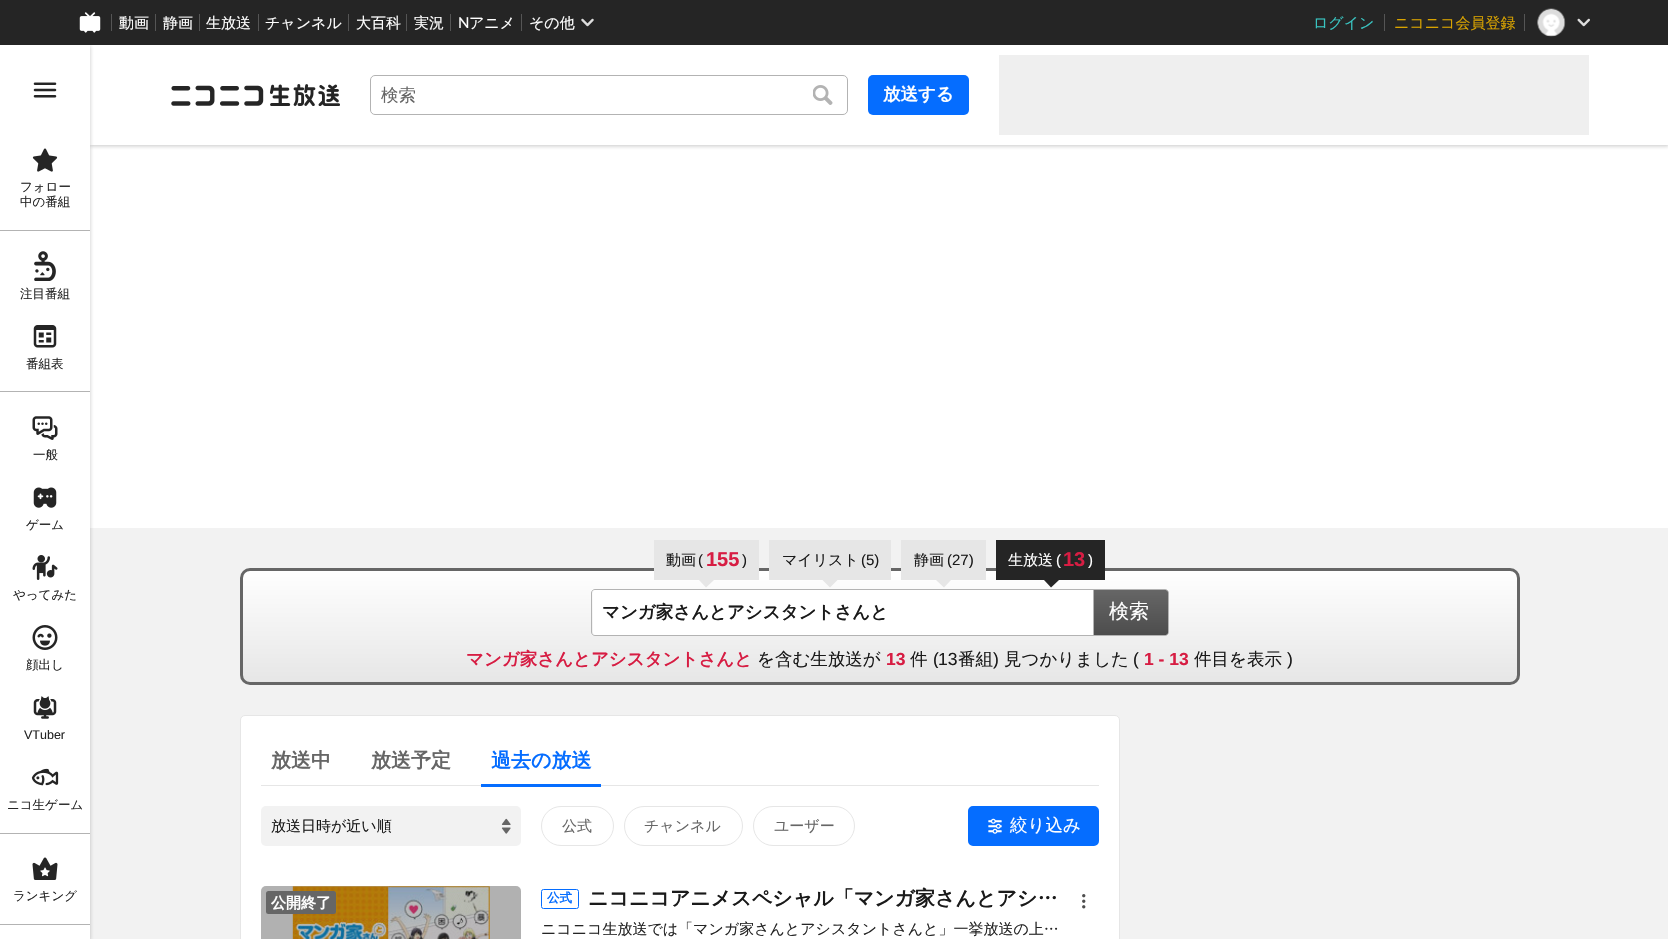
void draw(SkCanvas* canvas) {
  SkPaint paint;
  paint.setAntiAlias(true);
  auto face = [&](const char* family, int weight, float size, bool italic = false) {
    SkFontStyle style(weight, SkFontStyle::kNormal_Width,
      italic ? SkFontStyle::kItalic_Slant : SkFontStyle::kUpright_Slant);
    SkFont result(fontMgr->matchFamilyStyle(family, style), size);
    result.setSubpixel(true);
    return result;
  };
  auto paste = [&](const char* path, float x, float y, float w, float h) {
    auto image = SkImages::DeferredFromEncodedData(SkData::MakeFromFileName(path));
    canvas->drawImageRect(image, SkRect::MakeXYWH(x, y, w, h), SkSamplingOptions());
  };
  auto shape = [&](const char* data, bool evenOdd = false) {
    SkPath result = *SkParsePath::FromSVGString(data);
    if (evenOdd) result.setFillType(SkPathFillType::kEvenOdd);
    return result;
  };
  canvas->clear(0xfff2f2f2);
  paint.setColor(0xffffffff);
  canvas->drawRect(SkRect::MakeXYWH(90, 145, 1578, 383), paint);
  paint.setColor(0x401a1a1a);
  paint.setMaskFilter(SkMaskFilter::MakeBlur(kNormal_SkBlurStyle, 2));
  canvas->drawRect(SkRect::MakeXYWH(90, 46, 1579, 100), paint);
  paint.setMaskFilter(nullptr);
  paint.setColor(0xffffffff);
  canvas->drawRect(SkRect::MakeXYWH(90, 45, 1578, 100), paint);
  paint.setColor(0x401a1a1a);
  paint.setMaskFilter(SkMaskFilter::MakeBlur(kNormal_SkBlurStyle, 2));
  canvas->drawRect(SkRect::MakeXYWH(0, 46, 90, 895), paint);
  paint.setMaskFilter(nullptr);
  paint.setColor(0xff252525);
  canvas->drawRect(SkRect::MakeXYWH(0, 0, 1668, 45), paint);
  paste("img/1.png", 79, 12, 22, 21);
  {
    const struct { float x, y, w, h; SkColor color; } items[] = {
      {111, 14, 1, 17, 0xff555555},
      {155, 14, 1, 17, 0xff555555},
      {199, 14, 1, 17, 0xff555555},
      {258, 14, 1, 17, 0xff555555},
      {348, 14, 1, 17, 0xff555555},
      {406, 14, 1, 17, 0xff555555},
      {450, 14, 1, 17, 0xff555555},
      {521, 14, 1, 17, 0xff555555},
    };
    for (auto [x, y, w, h, color] : items) {
      paint.setColor(color);
      canvas->drawRect(SkRect::MakeXYWH(x, y, w, h), paint);
    }
  }
  paste("img/2.png", 581, 18, 13, 9);
  canvas->drawRect(SkRect::MakeXYWH(1384, 14, 1, 17), paint);
  canvas->drawRect(SkRect::MakeXYWH(1524, 14, 1, 17), paint);
  paste("img/3.png", 1537, 8, 29, 29);
  paste("img/4.png", 1577, 18, 13, 9);
  paint.setColor(0xffffffff);
  canvas->drawRect(SkRect::MakeXYWH(0, 45, 90, 894), paint);
  paste("img/5.png", 33, 82, 24, 16);
  paste("img/6.png", 32, 148, 26, 24);
  paint.setColor(0xffb3b3b3);
  canvas->drawRect(SkRect::MakeXYWH(0, 230, 90, 1), paint);
  paste("img/7.png", 34, 251, 22, 30);
  paste("img/8.png", 33, 325, 24, 23);
  canvas->drawRect(SkRect::MakeXYWH(0, 391, 90, 1), paint);
  paste("img/9.png", 32, 416, 26, 24);
  paste("img/10.png", 33, 487, 24, 21);
  paste("img/11.png", 32, 555, 26, 25);
  paste("img/12.png", 32, 625, 26, 25);
  paste("img/13.png", 33, 696, 24, 23);
  paste("img/14.png", 31, 768, 28, 18);
  canvas->drawRect(SkRect::MakeXYWH(0, 833, 90, 1), paint);
  paste("img/15.png", 32, 857, 26, 23);
  canvas->drawRect(SkRect::MakeXYWH(0, 924, 90, 1), paint);
  paste("img/16.png", 171, 84, 169, 22);
  paint.setStroke(true);
  paint.setStrokeWidth(1);
  canvas->drawRoundRect(SkRect::MakeXYWH(370.5f, 75.5f, 477, 39), 4.5f, 4.5f, paint);
  paste("img/17.png", 813, 85, 20, 20);
  paint.setStroke(false);
  paint.setColor(0xff056dff);
  canvas->drawRoundRect(SkRect::MakeXYWH(868, 75, 101, 40), 5, 5, paint);
  paint.setColor(0xffefefef);
  canvas->drawRect(SkRect::MakeXYWH(999, 55, 590, 80), paint);
  canvas->save();
  canvas->clipPath(shape("M250 568H1510C1515.5 568 1520 572.5 1520 578V675C1520 680.5 1515.5 685 1510 685H250C244.5 685 240 680.5 240 675V578C240 572.5 244.5 568 250 568Z"), true);
  {
    const SkColor colors[] = {0xffffffff, 0xffe6e6e6};
    const float stops[] = {0, 1};
    const SkPoint ends[] = {{880, 570}, {880, 683}};
    paint.setShader(SkGradientShader::MakeLinear(ends, colors, stops, 2, SkTileMode::kClamp));
    paint.setAlpha(255);
  }
  canvas->drawRect(SkRect::MakeXYWH(240, 570, 1280, 113), paint);
  canvas->restore();
  paint.setStroke(true);
  paint.setStrokeWidth(3);
  paint.setShader(nullptr);
  paint.setColor(0xff666666);
  canvas->drawRoundRect(SkRect::MakeXYWH(241.5f, 569.5f, 1277, 114), 8.5f, 8.5f, paint);
  paint.setStroke(false);
  paint.setColor(0xffe6e6e6);
  canvas->drawRect(SkRect::MakeXYWH(654, 540, 105, 40), paint);
  canvas->drawPath(shape("M699 580H714L706 587.5Z"), paint);
  canvas->drawRect(SkRect::MakeXYWH(769, 540, 122, 40), paint);
  canvas->drawPath(shape("M822.5 580H837.5L830 587.5Z"), paint);
  canvas->drawRect(SkRect::MakeXYWH(901, 540, 85, 40), paint);
  canvas->drawPath(shape("M936 580H951L944 587.5Z"), paint);
  paint.setColor(0xff252525);
  canvas->drawRect(SkRect::MakeXYWH(996, 540, 109, 40), paint);
  canvas->drawPath(shape("M1044 580H1059L1051 587.5Z"), paint);
  paint.setStroke(true);
  paint.setStrokeWidth(1);
  paint.setColor(0xffb3b3b3);
  canvas->drawPath(shape("M1091.5 589.5H1165C1167 589.5 1168.5 591 1168.5 593V632C1168.5 634 1167 635.5 1165 635.5H1091.5Z"), paint);
  paint.setStroke(false);
  {
    const SkColor colors[] = {0xff666666, 0xff4d4d4d};
    const float stops[] = {0, 1};
    const SkPoint ends[] = {{1130, 590}, {1130, 635}};
    paint.setShader(SkGradientShader::MakeLinear(ends, colors, stops, 2, SkTileMode::kClamp));
    paint.setAlpha(255);
  }
  canvas->drawPath(shape("M1093 590H1165.5C1167 590 1168 591 1168 592.5V632.5C1168 634 1167 635 1165.5 635H1093Z"), paint);
  paint.setStroke(true);
  paint.setShader(nullptr);
  paint.setColor(0xffb3b3b3);
  canvas->drawPath(shape("M595 589.5H1093.5V635.5H595C593 635.5 591.5 634 591.5 632V593C591.5 591 593 589.5 595 589.5Z"), paint);
  paint.setStroke(false);
  paint.setColor(0xffffffff);
  canvas->drawPath(shape("M595.5 590H1093V635H595.5C594 635 593 634 593 632.5V592.5C593 591 594 590 595.5 590Z"), paint);
  canvas->drawRoundRect(SkRect::MakeXYWH(240.5f, 715.5f, 879, 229), 4.5f, 4.5f, paint);
  paint.setStroke(true);
  paint.setColor(0xffe6e6e6);
  canvas->drawRoundRect(SkRect::MakeXYWH(240.5f, 715.5f, 879, 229), 4.5f, 4.5f, paint);
  paint.setStroke(false);
  canvas->drawRect(SkRect::MakeXYWH(261, 785, 838, 1), paint);
  paint.setColor(0xff056dff);
  canvas->drawRect(SkRect::MakeXYWH(481, 784, 120, 3), paint);
  paint.setColor(0xfff2f2f2);
  canvas->drawRoundRect(SkRect::MakeXYWH(261, 806, 260, 40), 5, 5, paint);
  paste("img/18.png", 501, 818, 10, 16);
  paint.setStroke(true);
  paint.setColor(0xffe6e6e6);
  canvas->drawRoundRect(SkRect::MakeXYWH(541.5f, 806.5f, 72, 39), 19.5f, 19.5f, paint);
  canvas->drawRoundRect(SkRect::MakeXYWH(624.5f, 806.5f, 118, 39), 19.5f, 19.5f, paint);
  canvas->drawRoundRect(SkRect::MakeXYWH(753.5f, 806.5f, 101, 39), 19.5f, 19.5f, paint);
  paint.setStroke(false);
  paint.setColor(0xff056dff);
  canvas->drawRoundRect(SkRect::MakeXYWH(969.5f, 807.5f, 128, 37), 3.5f, 3.5f, paint);
  paint.setStroke(true);
  paint.setStrokeWidth(3);
  canvas->drawRoundRect(SkRect::MakeXYWH(969.5f, 807.5f, 128, 37), 3.5f, 3.5f, paint);
  paste("img/19.png", 988, 818, 14, 16);
  paint.setStroke(false);
  paint.setColor(0xfff2f2f2);
  canvas->drawRoundRect(SkRect::MakeXYWH(261, 886, 260, 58), 5, 5, paint);
  paste("img/20.png", 292, 886, 198, 53);
  paint.setColor(0x4d1a1a1a);
  canvas->drawRoundRect(SkRect::MakeXYWH(261, 886, 260, 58), 5, 5, paint);
  paint.setColor(0xff666666);
  canvas->drawRoundRect(SkRect::MakeXYWH(266, 891, 70, 23), 2.5f, 2.5f, paint);
  paint.setStroke(true);
  paint.setStrokeWidth(1);
  paint.setColor(0xff056dff);
  canvas->drawRoundRect(SkRect::MakeXYWH(541.5f, 889.5f, 37, 19), 2, 2, paint);
  paste("img/21.png", 1082, 894, 4, 15);
  auto f0 = face("WenQuanYi Zen Hei", 500, 15);
  paint.setStroke(false);
  paint.setColor(0xffffffff);
  {
    const struct { const char* s; float x, y; } items[] = {
      {"動画", 119, 28},
      {"静画", 163, 28},
      {"生放送", 206, 28},
      {"チャンネル", 265, 28},
      {"大百科", 356, 28},
      {"実況", 414, 28},
    };
    for (auto [s, x, y] : items) {
      canvas->drawString(s, x, y, f0, paint);
    }
  }
  auto f1 = face("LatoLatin", 400, 15);
  canvas->drawString("N", 458, 28, f1, paint);
  canvas->drawString("アニメ", 469, 28, f0, paint);
  canvas->drawString("その他", 529, 28, f0, paint);
  paint.setColor(0xff39c4c1);
  canvas->drawString("ログイン", 1313, 28, f0, paint);
  paint.setColor(0xffd9a300);
  canvas->drawString("ニコニコ会員登録", 1394, 28, f0, paint);
  auto f2 = face("WenQuanYi Zen Hei", 500, 12.5f);
  paint.setColor(0xff252525);
  {
    const struct { const char* s; float x, y; } items[] = {
      {"フォロー", 20, 191},
      {"中の番組", 20, 206},
      {"注目番組", 20, 298},
      {"番組表", 26, 368},
      {"一般", 33, 459},
      {"ゲーム", 26, 529},
      {"やってみた", 13, 599},
      {"顔出し", 26, 669},
    };
    for (auto [s, x, y] : items) {
      canvas->drawString(s, x, y, f2, paint);
    }
  }
  auto f3 = face("Liberation Sans", 400, 12.5f);
  canvas->drawString("VTuber", 24, 739, f3, paint);
  canvas->drawString("ニコ生ゲーム", 7, 809, f2, paint);
  canvas->drawString("ランキング", 13, 900, f2, paint);
  auto f4 = face("WenQuanYi Zen Hei", 500, 17.5f);
  paint.setColor(0xff666666);
  canvas->drawString("検索", 381, 101, f4, paint);
  auto f5 = face("WenQuanYi Zen Hei", 700, 17.5f);
  paint.setColor(0xffffffff);
  canvas->drawString("放送する", 883, 100, f5, paint);
  paint.setColor(0xff1a1a1a);
  canvas->drawString("動画", 666, 565, f0, paint);
  auto f6 = face("Liberation Sans", 400, 15);
  canvas->drawString("(", 698, 565, f6, paint);
  auto f7 = face("Liberation Sans", 700, 20);
  paint.setColor(0xffd71d43);
  canvas->drawString("155", 706, 566, f7, paint);
  paint.setColor(0xff1a1a1a);
  canvas->drawString(")", 742, 565, f6, paint);
  canvas->drawString("マイリスト", 782, 565, f0, paint);
  canvas->drawString("(5)", 861, 565, f6, paint);
  canvas->drawString("静画", 914, 565, f0, paint);
  canvas->drawString("(27)", 947, 565, f6, paint);
  paint.setColor(0xffffffff);
  canvas->drawString("生放送", 1008, 565, f0, paint);
  canvas->drawString("(", 1056, 565, f6, paint);
  paint.setColor(0xffd71d43);
  canvas->drawString("13", 1063, 566, f7, paint);
  paint.setColor(0xffffffff);
  canvas->drawString(")", 1088, 565, f6, paint);
  paint.setColor(0xff1a1a1a);
  canvas->drawString("マンガ家さんとアシスタントさんと", 602, 618, f5, paint);
  auto f8 = face("WenQuanYi Zen Hei", 500, 20);
  paint.setColor(0xffffffff);
  canvas->drawString("検索", 1109, 618, f8, paint);
  paint.setColor(0xffd71d43);
  canvas->drawString("マンガ家さんとアシスタントさんと", 466, 665, f5, paint);
  paint.setColor(0xff1a1a1a);
  canvas->drawString("を含む生放送が", 757, 665, f4, paint);
  auto f9 = face("Liberation Sans", 700, 17.5f);
  paint.setColor(0xffd71d43);
  canvas->drawString("13", 886, 665, f9, paint);
  paint.setColor(0xff1a1a1a);
  canvas->drawString("件", 910, 665, f4, paint);
  canvas->save();
  canvas->clipRect(SkRect::MakeXYWH(243, 650, 1275, 18));
  auto f10 = face("Liberation Sans", 400, 17.5f);
  canvas->drawString("(", 933, 665, f10, paint);
  canvas->restore();
  canvas->drawString("13", 938, 665, f10, paint);
  canvas->drawString("番組", 958, 665, f4, paint);
  canvas->drawString(")", 993, 665, f10, paint);
  canvas->drawString("見つかりました", 1004, 665, f4, paint);
  canvas->drawString("(", 1133, 665, f10, paint);
  paint.setColor(0xffd71d43);
  canvas->drawString("1 - 13", 1144, 665, f9, paint);
  paint.setColor(0xff1a1a1a);
  canvas->drawString("件目を表示", 1194, 665, f4, paint);
  canvas->drawString(")", 1287, 665, f10, paint);
  auto f11 = face("WenQuanYi Zen Hei", 700, 20);
  paint.setColor(0xff666666);
  canvas->drawString("放送中", 271, 767, f11, paint);
  canvas->drawString("放送予定", 371, 767, f11, paint);
  paint.setColor(0xff056dff);
  canvas->drawString("過去の放送", 491, 767, f11, paint);
  canvas->save();
  canvas->clipRect(SkRect::MakeXYWH(271, 819, 218, 15));
  paint.setColor(0xff1a1a1a);
  canvas->drawString("放送日時が近い順", 271, 831, f0, paint);
  canvas->restore();
  paint.setColor(0xff666666);
  {
    const struct { const char* s; float x, y; } items[] = {
      {"公式", 562, 831},
      {"チャンネル", 644, 831},
      {"ユーザー", 774, 831},
    };
    for (auto [s, x, y] : items) {
      canvas->drawString(s, x, y, f0, paint);
    }
  }
  paint.setColor(0xffffffff);
  canvas->drawString("絞り込み", 1010, 831, f4, paint);
  auto f12 = face("WenQuanYi Zen Hei", 700, 15);
  canvas->drawString("公開終了", 271, 908, f12, paint);
  auto f13 = face("WenQuanYi Zen Hei", 700, 12.5f);
  paint.setColor(0xff056dff);
  canvas->drawString("公式", 547, 902, f13, paint);
  paint.setColor(0xff1a1a1a);
  canvas->drawString("ニコニコアニメスペシャル「マンガ家さんとアシ…", 588, 905, f11, paint);
  paint.setColor(0xff252525);
  canvas->drawString("ニコニコ生放送では「マンガ家さんとアシスタントさんと」一挙放送の上…", 541, 934, f0, paint);
}
